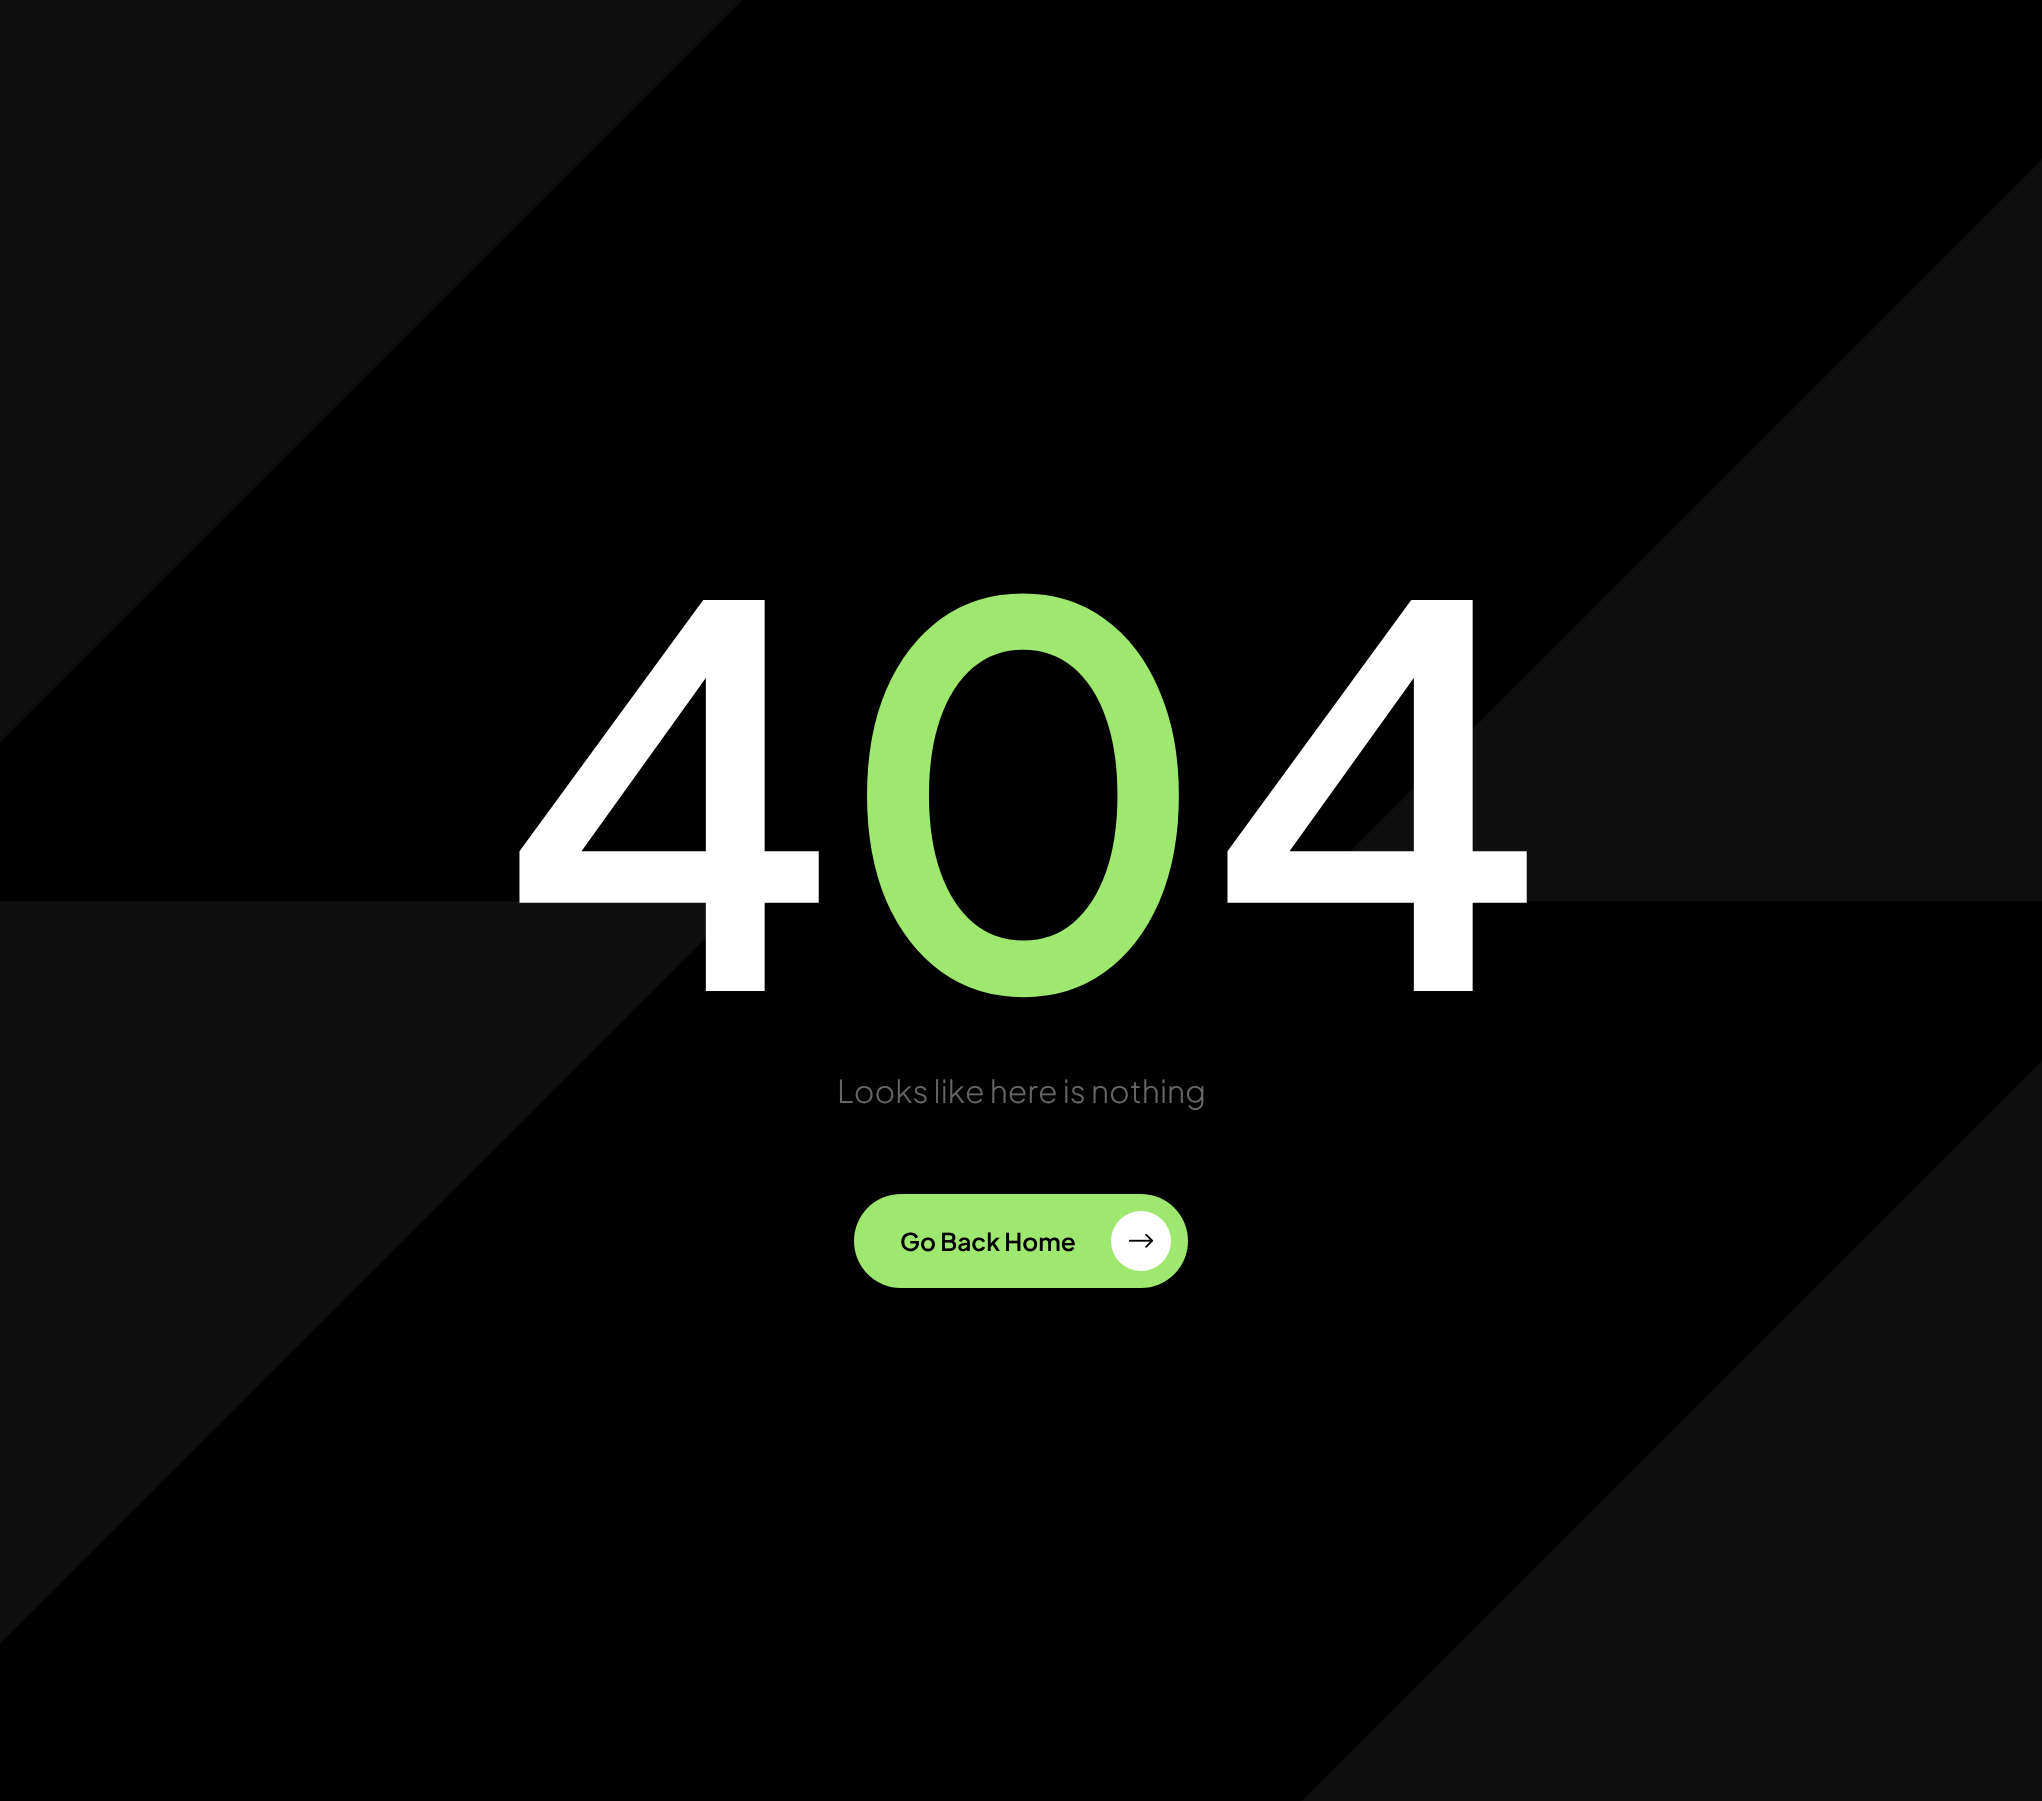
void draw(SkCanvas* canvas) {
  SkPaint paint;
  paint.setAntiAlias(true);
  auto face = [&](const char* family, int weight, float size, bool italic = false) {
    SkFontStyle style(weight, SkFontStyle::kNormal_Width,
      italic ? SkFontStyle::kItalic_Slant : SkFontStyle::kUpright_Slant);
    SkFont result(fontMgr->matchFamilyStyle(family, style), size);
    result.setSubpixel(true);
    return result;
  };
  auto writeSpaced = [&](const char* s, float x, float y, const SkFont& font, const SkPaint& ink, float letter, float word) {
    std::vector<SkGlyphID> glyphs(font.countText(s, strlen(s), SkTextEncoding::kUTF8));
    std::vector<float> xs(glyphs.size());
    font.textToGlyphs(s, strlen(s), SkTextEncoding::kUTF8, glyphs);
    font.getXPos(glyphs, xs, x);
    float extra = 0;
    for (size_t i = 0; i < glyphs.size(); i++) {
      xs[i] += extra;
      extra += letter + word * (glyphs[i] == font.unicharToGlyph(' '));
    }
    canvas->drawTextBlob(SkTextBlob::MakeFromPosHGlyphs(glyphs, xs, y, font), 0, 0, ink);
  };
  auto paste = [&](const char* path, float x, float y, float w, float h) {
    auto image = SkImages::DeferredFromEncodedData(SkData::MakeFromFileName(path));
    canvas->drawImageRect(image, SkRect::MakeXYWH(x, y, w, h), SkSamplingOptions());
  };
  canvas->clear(0xffffffff);
  paste("img/1.png", 0, 0, 2042, 1801);
  paint.setColor(0xff9fe870);
  canvas->drawRoundRect(SkRect::MakeXYWH(854, 1194, 334, 94), 47, 47, paint);
  paint.setColor(0xffffffff);
  canvas->drawCircle(1141, 1241, 30, paint);
  paste("img/2.png", 1129, 1234, 24, 14);
  auto f0 = face("Plus Jakarta Sans", 600, 525);
  writeSpaced("4", 499, 991, f0, paint, -4, 0);
  paint.setColor(0xff9fe870);
  writeSpaced("0", 835, 991, f0, paint, -4, 0);
  paint.setColor(0xffffffff);
  writeSpaced("4", 1207, 991, f0, paint, -4, 0);
  auto f1 = face("Plus Jakarta Sans", 300, 31.5f);
  paint.setColor(0xff666666);
  canvas->drawString("Looks like here is nothing", 837, 1103, f1, paint);
  auto f2 = face("Plus Jakarta Sans", 600, 24.5f);
  paint.setColor(0xff000000);
  canvas->drawString("Go Back Home", 900, 1251, f2, paint);
}
